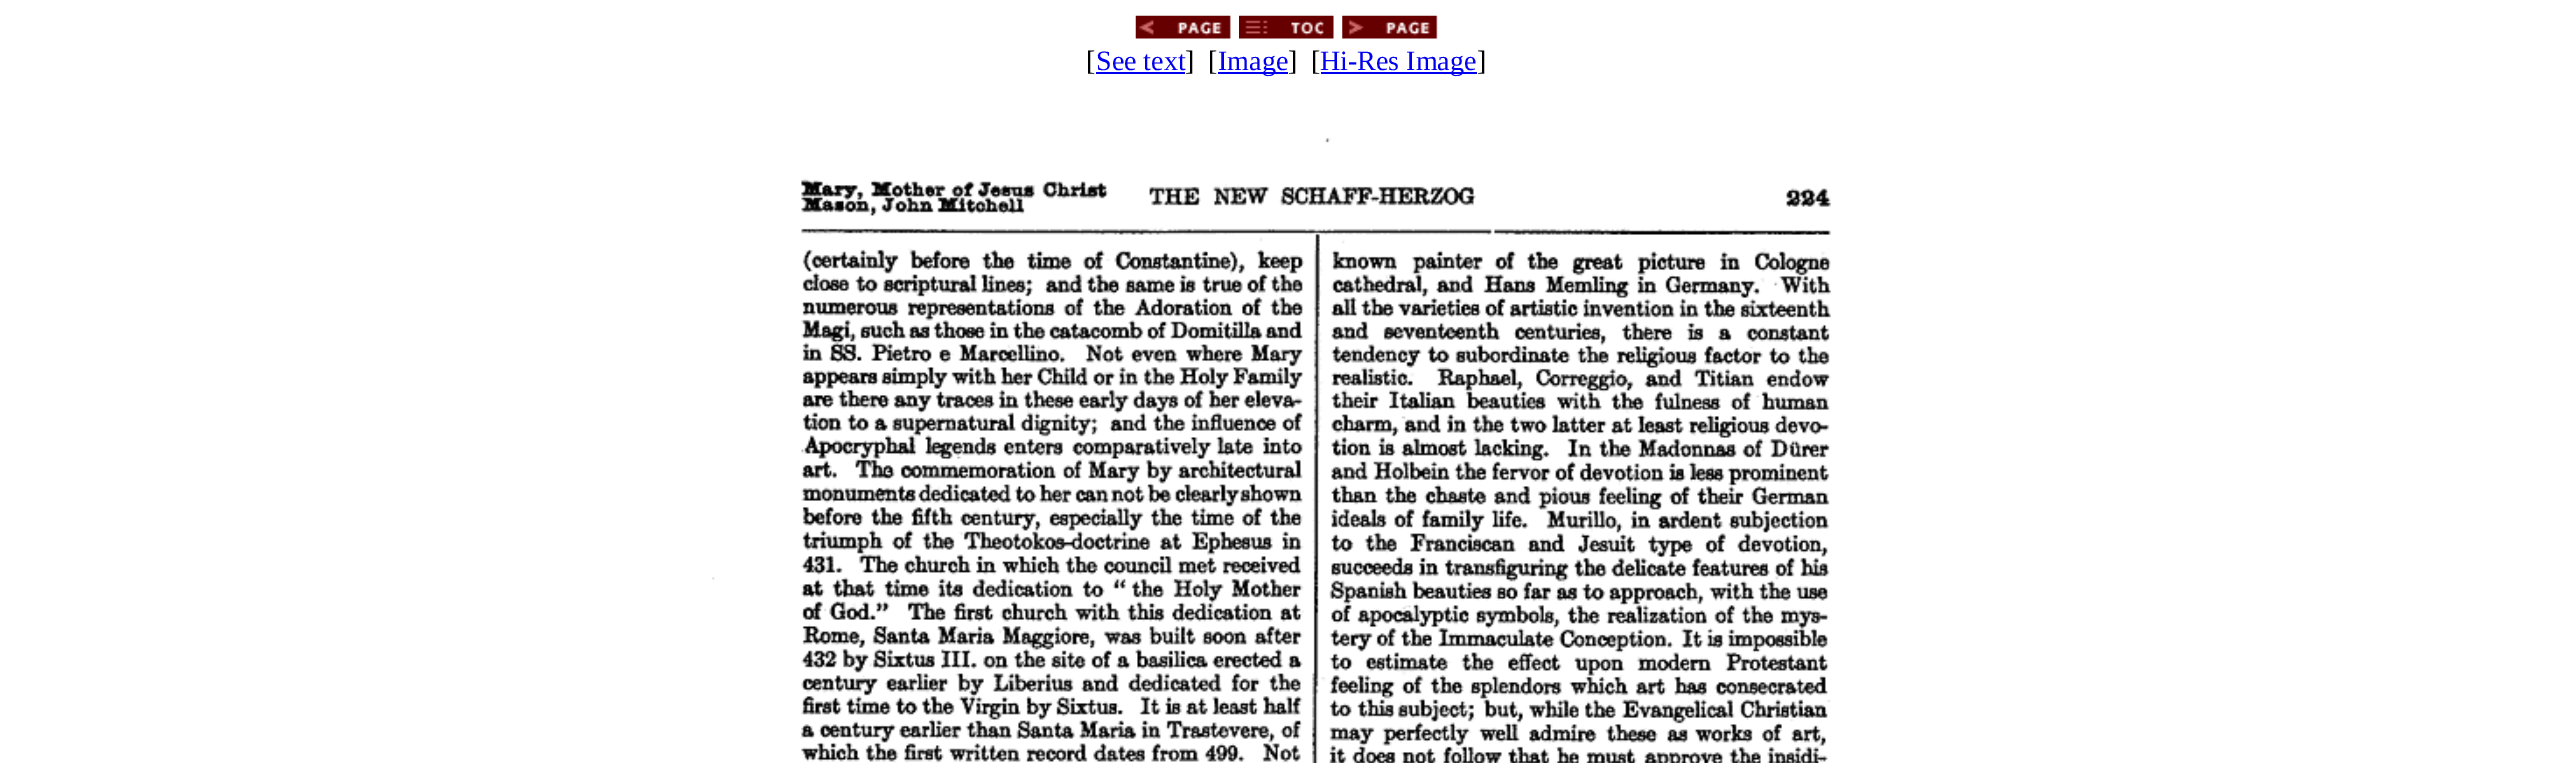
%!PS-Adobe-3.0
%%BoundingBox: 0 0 2571 763
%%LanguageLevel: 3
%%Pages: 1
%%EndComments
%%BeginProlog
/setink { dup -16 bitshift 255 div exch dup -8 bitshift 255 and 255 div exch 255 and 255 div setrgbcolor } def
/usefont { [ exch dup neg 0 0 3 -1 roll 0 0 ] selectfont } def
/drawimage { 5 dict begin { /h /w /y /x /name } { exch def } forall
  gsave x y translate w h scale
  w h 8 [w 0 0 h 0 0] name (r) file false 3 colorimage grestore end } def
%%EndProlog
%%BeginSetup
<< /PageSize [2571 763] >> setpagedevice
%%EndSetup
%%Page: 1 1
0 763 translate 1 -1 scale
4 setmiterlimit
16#FFFFFF setink
0 0 2571 763 rectfill
(img1.raw) 1135 15 96 24 drawimage
(img2.raw) 1239 15 95 24 drawimage
(img3.raw) 1342 15 96 24 drawimage
/LiberationSerif-Regular 28 usefont
16#000000 setink
1086 70 moveto ([) show
16#0000EE setink
1096 70 moveto (See text) show
1096 72 89 2 rectfill
16#000000 setink
1185 70 moveto (]) show
1208 70 moveto ([) show
16#0000EE setink
1218 72 70 2 rectfill
1218 70 moveto (Image) show
16#000000 setink
1288 70 moveto (]) show
1311 70 moveto ([) show
16#0000EE setink
1321 72 156 2 rectfill
1320 70 moveto (Hi-Res Image) show
16#000000 setink
1477 70 moveto (]) show
(img4.raw) 712 137 1119 626 drawimage
showpage
%%EOF
